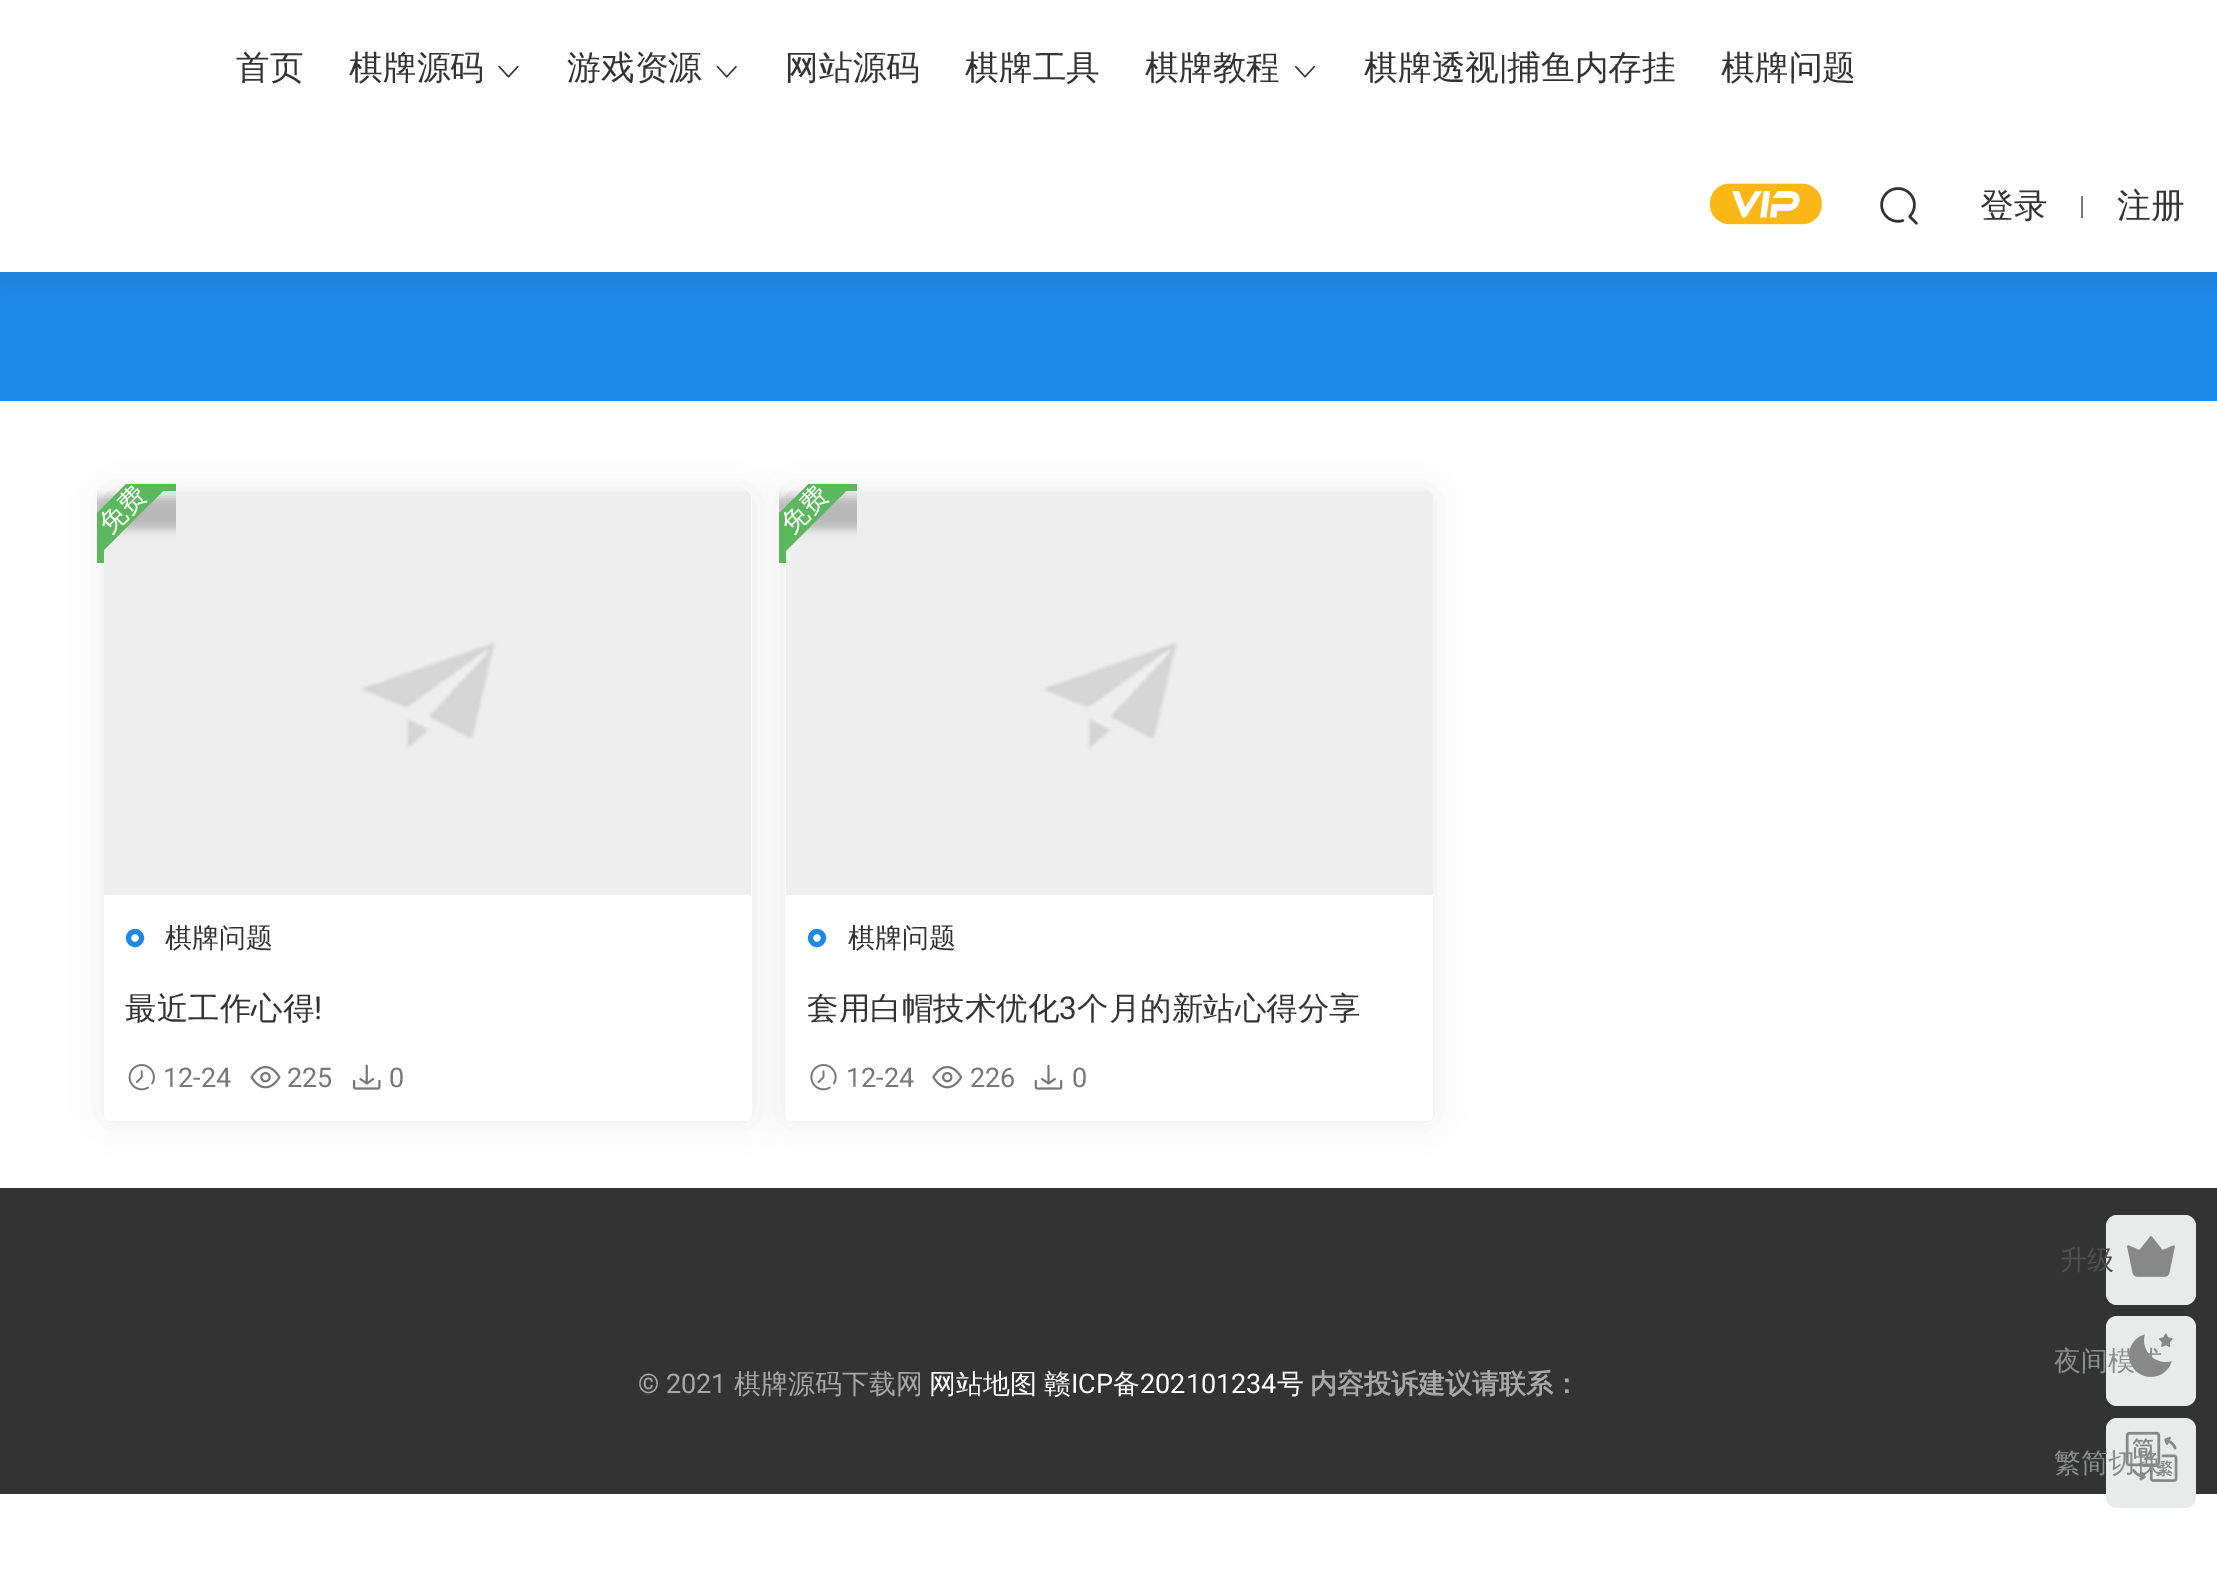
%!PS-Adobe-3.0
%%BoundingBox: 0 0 2217 1585
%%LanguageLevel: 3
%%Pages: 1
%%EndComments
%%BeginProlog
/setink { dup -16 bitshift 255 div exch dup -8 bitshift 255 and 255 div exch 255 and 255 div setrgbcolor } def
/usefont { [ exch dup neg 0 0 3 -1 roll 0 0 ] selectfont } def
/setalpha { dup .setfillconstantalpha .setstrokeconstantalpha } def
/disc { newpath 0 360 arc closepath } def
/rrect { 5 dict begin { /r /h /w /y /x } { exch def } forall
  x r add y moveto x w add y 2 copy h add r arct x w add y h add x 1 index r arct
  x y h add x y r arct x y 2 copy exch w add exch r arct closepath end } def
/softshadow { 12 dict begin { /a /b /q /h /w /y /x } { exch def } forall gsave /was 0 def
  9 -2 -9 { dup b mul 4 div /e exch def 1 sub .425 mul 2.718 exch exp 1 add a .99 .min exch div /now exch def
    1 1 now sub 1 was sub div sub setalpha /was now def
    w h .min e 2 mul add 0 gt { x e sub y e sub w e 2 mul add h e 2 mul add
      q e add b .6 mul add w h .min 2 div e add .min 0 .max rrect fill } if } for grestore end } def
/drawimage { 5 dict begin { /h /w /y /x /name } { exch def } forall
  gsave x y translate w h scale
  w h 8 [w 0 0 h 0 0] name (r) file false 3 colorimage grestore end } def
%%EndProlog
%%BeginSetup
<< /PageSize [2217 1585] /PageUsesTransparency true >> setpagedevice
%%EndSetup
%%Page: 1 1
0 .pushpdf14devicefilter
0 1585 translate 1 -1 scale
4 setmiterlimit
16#FFFFFF setink
0 0 2217 1585 rectfill
16#1E88E5 setink
0 272 2217 129 rectfill
16#113A5D setink
0 9 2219 272 0 11 0.1 softshadow
16#FFFFFF setink
0 0 2217 272 rectfill
/WenQuanYiZenHei-Medium 33.75 usefont
16#333333 setink
236 79 moveto (首页) show
349 79 moveto (棋牌源码) show
(img1.raw) 498 65 21 13 drawimage
567 79 moveto (游戏资源) show
(img2.raw) 716 65 21 13 drawimage
[
    [(网站源码) 785 79]
    [(棋牌工具) 965 79]
    [(棋牌教程) 1145 79]
] { aload pop moveto show } forall
(img3.raw) 1294 65 22 13 drawimage
1364 79 moveto (棋牌透视) show
/Roboto-Regular 33.75 usefont
1499 79 moveto (|) show
/WenQuanYiZenHei-Medium 33.75 usefont
1507 79 moveto (捕鱼内存挂) show
1721 79 moveto (棋牌问题) show
(img4.raw) 1710 183 112 42 drawimage
(img5.raw) 1880 187 38 38 drawimage
1980 217 moveto (登录) show
16#777777 setink
2081 196 2 22 rectfill
16#333333 setink
2117 217 moveto (注册) show
16#000000 setink
104 491 648 630 7 17 0.07 softshadow
16#FFFFFF setink
104 491 648 630 7 rrect fill
16#5CB85C setink
163 484 13 7 rectfill
(img9.raw) 104 491 647 404 drawimage
gsave
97 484 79 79 rectclip
16#000000 setink
52 497 135 32 0 4.5 0.22 softshadow
grestore
97 550 7 13 rectfill
gsave
97 484 79 79 rectclip
64 546 moveto 159 451 lineto 181 473 lineto 86 568 lineto closepath fill
grestore
/WenQuanYiZenHei-Medium 27 usefont
16#FFFFFF setink
gsave 110 535 translate -45 rotate 0 0 moveto (免费) show grestore
(img6.raw) 128 1064 27 27 drawimage
/Roboto-Regular 27 usefont
16#777777 setink
163 1087 moveto (12-24) show
(img7.raw) 250 1066 31 23 drawimage
287 1087 moveto (225) show
(img8.raw) 352 1064 29 26 drawimage
389 1087 moveto (0) show
16#1E88E5 setink
5 setlinewidth
135 938 6.5 disc stroke
/WenQuanYiZenHei-Medium 27 usefont
16#333333 setink
165 947 moveto (棋牌问题) show
/WenQuanYiZenHei-Medium 31.5 usefont
125 1019 moveto (最近工作心得) show
/Roboto-Regular 31.5 usefont
314 1019 moveto (!) show
16#000000 setink
785 491 648 630 7 17 0.07 softshadow
16#FFFFFF setink
785 491 648 630 7 rrect fill
16#5CB85C setink
846 484 11 7 rectfill
(img13.raw) 785 491 648 404 drawimage
gsave
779 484 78 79 rectclip
16#000000 setink
736 497 135 32 0 4.5 0.22 softshadow
grestore
779 551 7 12 rectfill
gsave
779 484 78 79 rectclip
746 546 moveto 842 451 lineto 864 473 lineto 769 568 lineto closepath fill
grestore
/WenQuanYiZenHei-Medium 27 usefont
16#FFFFFF setink
gsave 792 535 translate -45 rotate 0 0 moveto (免费) show grestore
(img10.raw) 810 1064 27 27 drawimage
/Roboto-Regular 27 usefont
16#777777 setink
846 1087 moveto (12-24) show
(img11.raw) 932 1066 31 23 drawimage
970 1087 moveto (226) show
(img12.raw) 1034 1064 29 26 drawimage
1072 1087 moveto (0) show
16#1E88E5 setink
817 938 6.5 disc stroke
/WenQuanYiZenHei-Medium 27 usefont
16#333333 setink
848 947 moveto (棋牌问题) show
/WenQuanYiZenHei-Medium 31.5 usefont
807 1019 moveto (套用白帽技术优化) show
/Roboto-Regular 31.5 usefont
1059 1019 moveto (3) show
/WenQuanYiZenHei-Medium 31.5 usefont
1077 1019 moveto (个月的新站心得分享) show
0 1188 2217 306 rectfill
/Roboto-Regular 27 usefont
16#A7A7A7 setink
638 1393 moveto (© 2021) show
/WenQuanYiZenHei-Medium 27 usefont
734 1393 moveto (棋牌源码下载网) show
16#FFFFFF setink
929 1393 moveto (网站地图) show
1044 1393 moveto (赣) show
/Roboto-Regular 27 usefont
1071 1393 moveto (ICP) show
/WenQuanYiZenHei-Medium 27 usefont
1113 1393 moveto (备) show
/Roboto-Regular 27 usefont
1140 1393 moveto (202101234) show
/WenQuanYiZenHei-Medium 27 usefont
1277 1393 moveto (号) show
/WenQuanYiZenHei-Bold 27 usefont
16#A7A7A7 setink
1310 1393 moveto (内容投诉建议请联系：) show
16#E9EAEA setink
2106 1215 90 90 11 rrect fill
/WenQuanYiZenHei-Medium 27 usefont
16#4F4F4F setink
2060 1269 moveto (升级) show
(img14.raw) 2127 1236 48 41 drawimage
16#E9EAEA setink
2106 1316 90 90 11 rrect fill
16#8C8D8D setink
2054 1370 moveto (夜间模) show
(img15.raw) 2129 1333 44 44 drawimage
16#E9EAEA setink
2106 1418 90 90 11 rrect fill
16#8C8D8D setink
2054 1472 moveto (繁简切换) show
(img16.raw) 2125 1431 53 51 drawimage
.poppdf14devicefilter showpage
%%EOF
